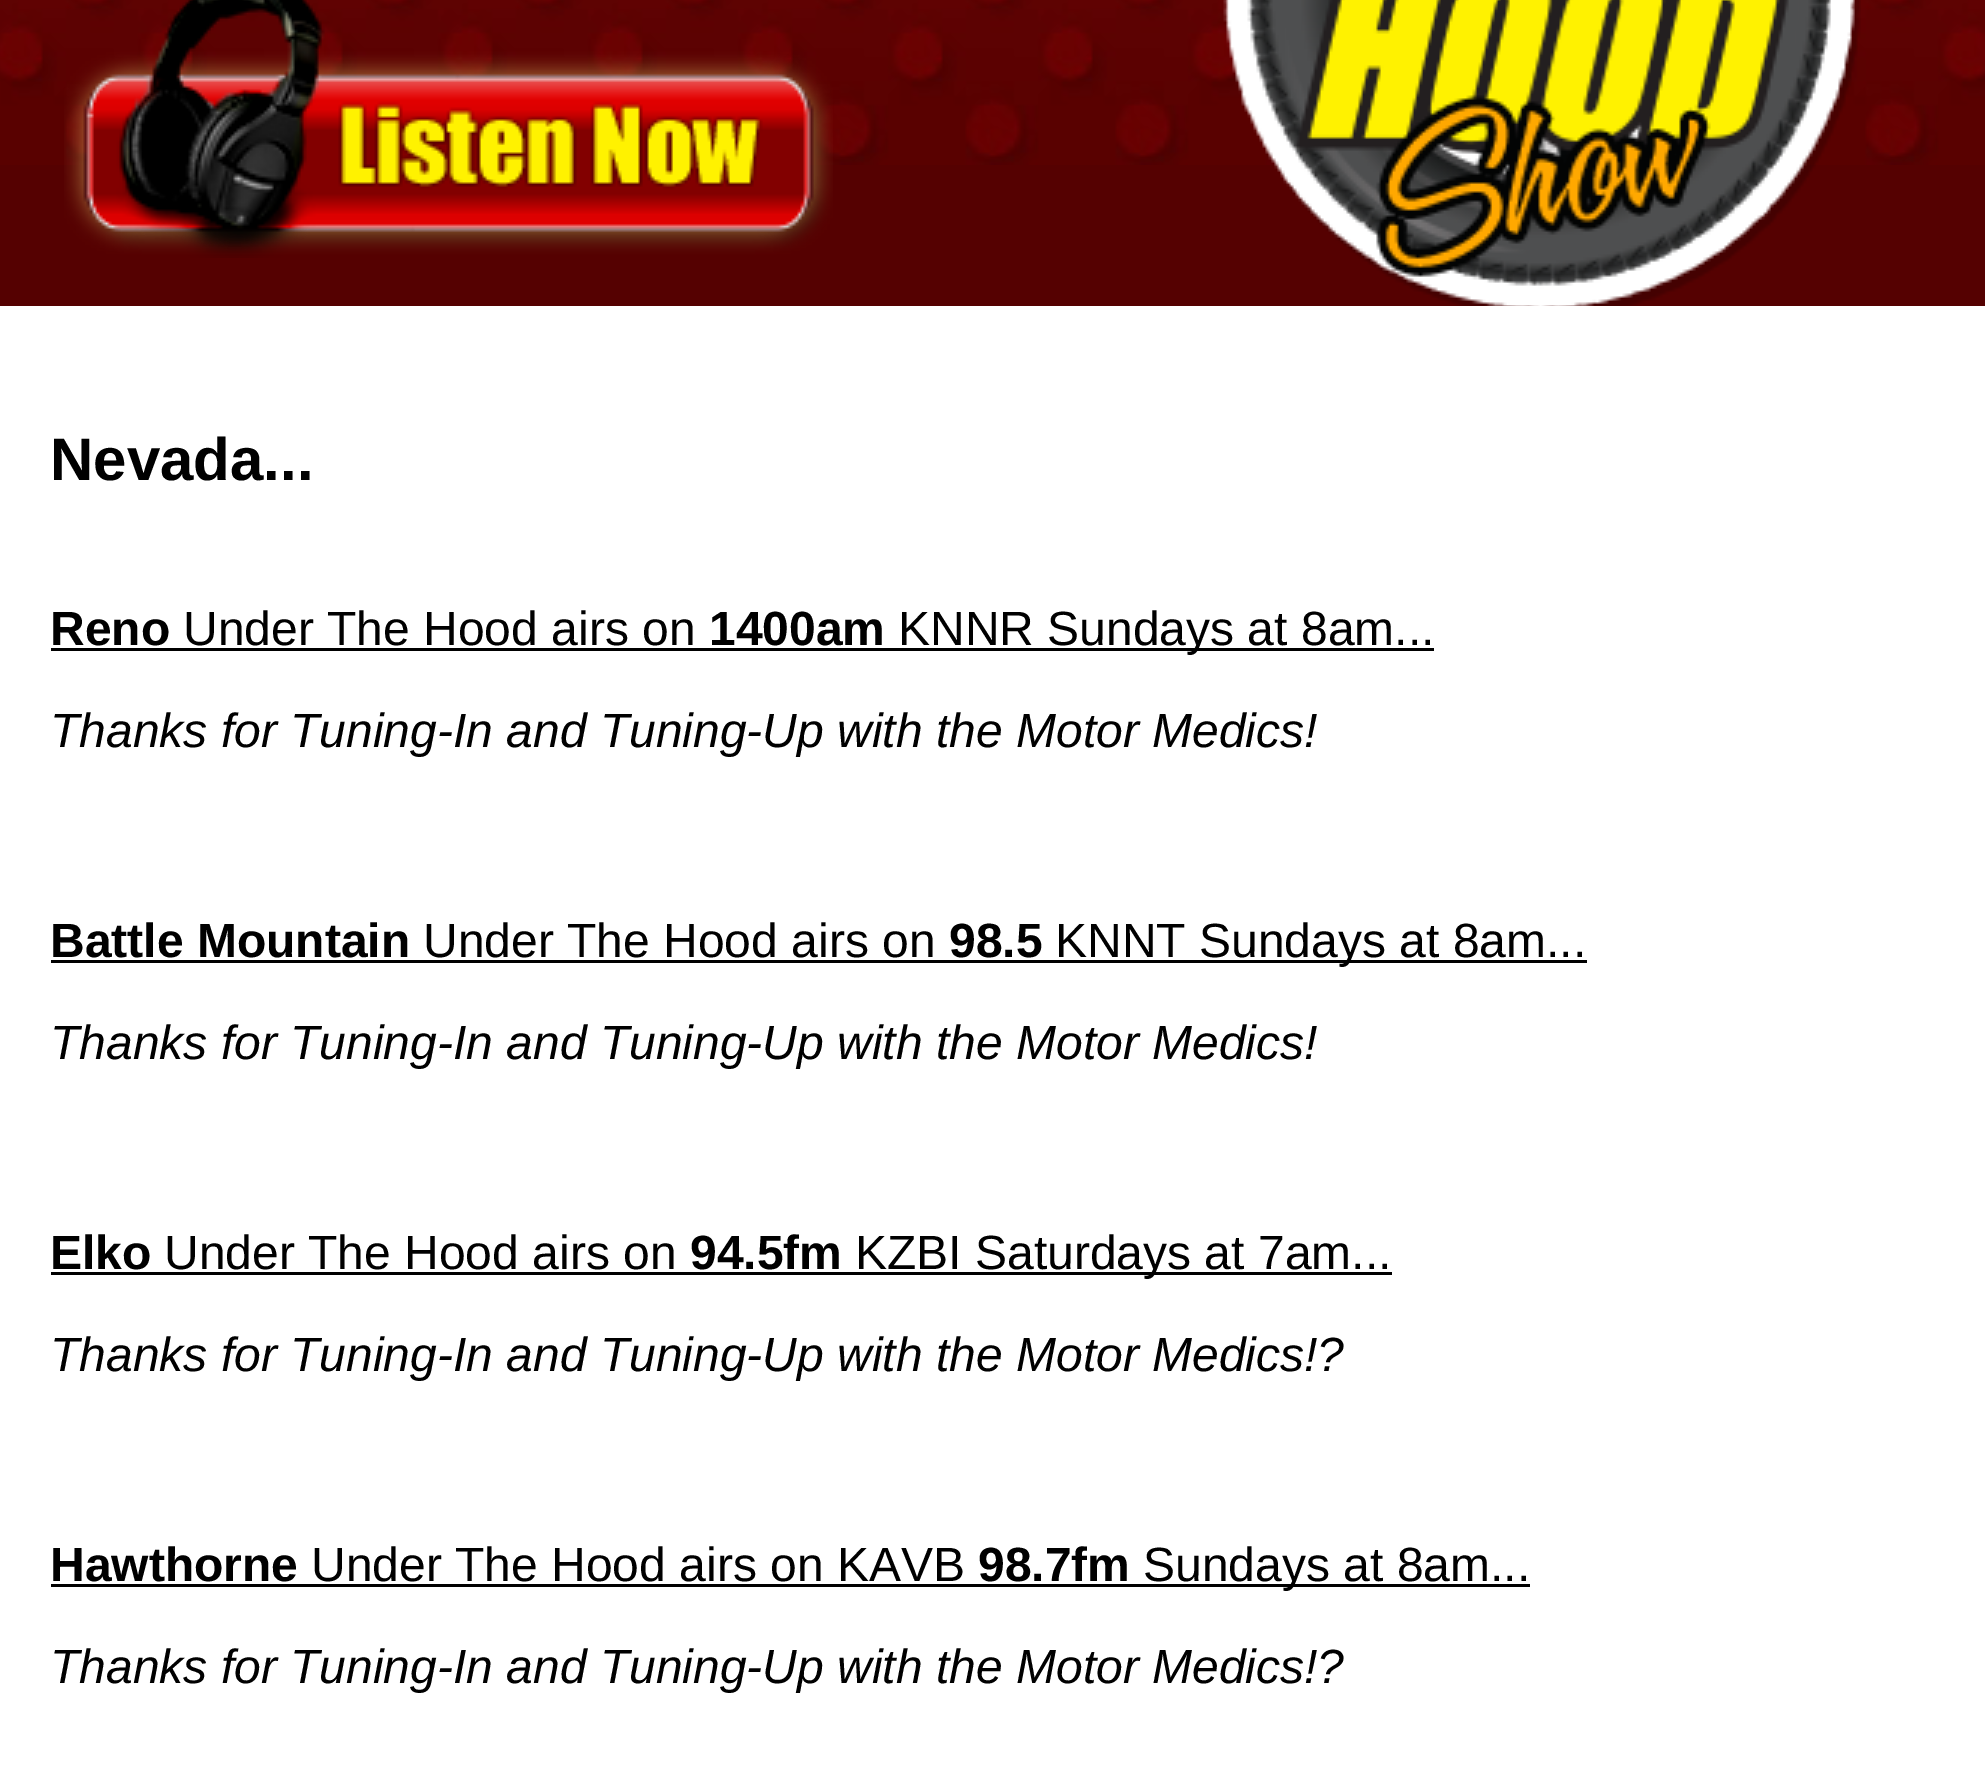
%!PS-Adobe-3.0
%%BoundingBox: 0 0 1985 1776
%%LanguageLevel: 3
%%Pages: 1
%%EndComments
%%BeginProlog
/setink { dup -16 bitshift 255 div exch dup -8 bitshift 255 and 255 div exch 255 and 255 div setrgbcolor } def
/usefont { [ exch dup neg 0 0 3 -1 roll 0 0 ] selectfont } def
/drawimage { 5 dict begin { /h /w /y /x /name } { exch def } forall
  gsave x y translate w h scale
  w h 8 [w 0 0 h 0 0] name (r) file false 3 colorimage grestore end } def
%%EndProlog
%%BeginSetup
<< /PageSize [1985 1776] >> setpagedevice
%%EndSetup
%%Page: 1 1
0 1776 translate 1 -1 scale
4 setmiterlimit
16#550101 setink
0 0 1985 1776 rectfill
(img1.raw) 0 0 1985 165 drawimage
(img2.raw) 64 0 769 258 drawimage
(img3.raw) 1223 0 638 306 drawimage
16#FFFFFF setink
0 306 1985 1470 rectfill
/LiberationSans-Bold 60 usefont
16#000000 setink
50 480 moveto (Nevada...) show
/LiberationSans-Bold 48 usefont
50 645 moveto (Reno) show
/LiberationSans-Regular 48 usefont
183 645 moveto (Under The Hood airs on) show
/LiberationSans-Bold 48 usefont
709 645 moveto (1400am) show
51 648 1383 3 rectfill
/LiberationSans-Regular 48 usefont
898 645 moveto (KNNR Sundays at 8am...) show
/LiberationSans-Italic 48 usefont
50 747 moveto (Thanks for Tuning-In and Tuning-Up with the Motor Medics!) show
/LiberationSans-Bold 48 usefont
50 957 moveto (Battle Mountain) show
/LiberationSans-Regular 48 usefont
423 957 moveto (Under The Hood airs on) show
/LiberationSans-Bold 48 usefont
949 957 moveto (98.5) show
51 960 1536 3 rectfill
/LiberationSans-Regular 48 usefont
1055 957 moveto (KNNT Sundays at 8am...) show
/LiberationSans-Italic 48 usefont
50 1059 moveto (Thanks for Tuning-In and Tuning-Up with the Motor Medics!) show
/LiberationSans-Bold 48 usefont
50 1269 moveto (Elko) show
/LiberationSans-Regular 48 usefont
164 1269 moveto (Under The Hood airs on) show
/LiberationSans-Bold 48 usefont
690 1269 moveto (94.5fm) show
51 1272 1341 3 rectfill
/LiberationSans-Regular 48 usefont
855 1269 moveto (KZBI Saturdays at 7am...) show
/LiberationSans-Italic 48 usefont
50 1371 moveto (Thanks for Tuning-In and Tuning-Up with the Motor Medics!?) show
/LiberationSans-Bold 48 usefont
50 1581 moveto (Hawthorne) show
/LiberationSans-Regular 48 usefont
311 1581 moveto (Under The Hood airs on KAVB) show
/LiberationSans-Bold 48 usefont
978 1581 moveto (98.7fm) show
51 1584 1479 3 rectfill
/LiberationSans-Regular 48 usefont
1143 1581 moveto (Sundays at 8am...) show
/LiberationSans-Italic 48 usefont
50 1683 moveto (Thanks for Tuning-In and Tuning-Up with the Motor Medics!?) show
showpage
%%EOF
